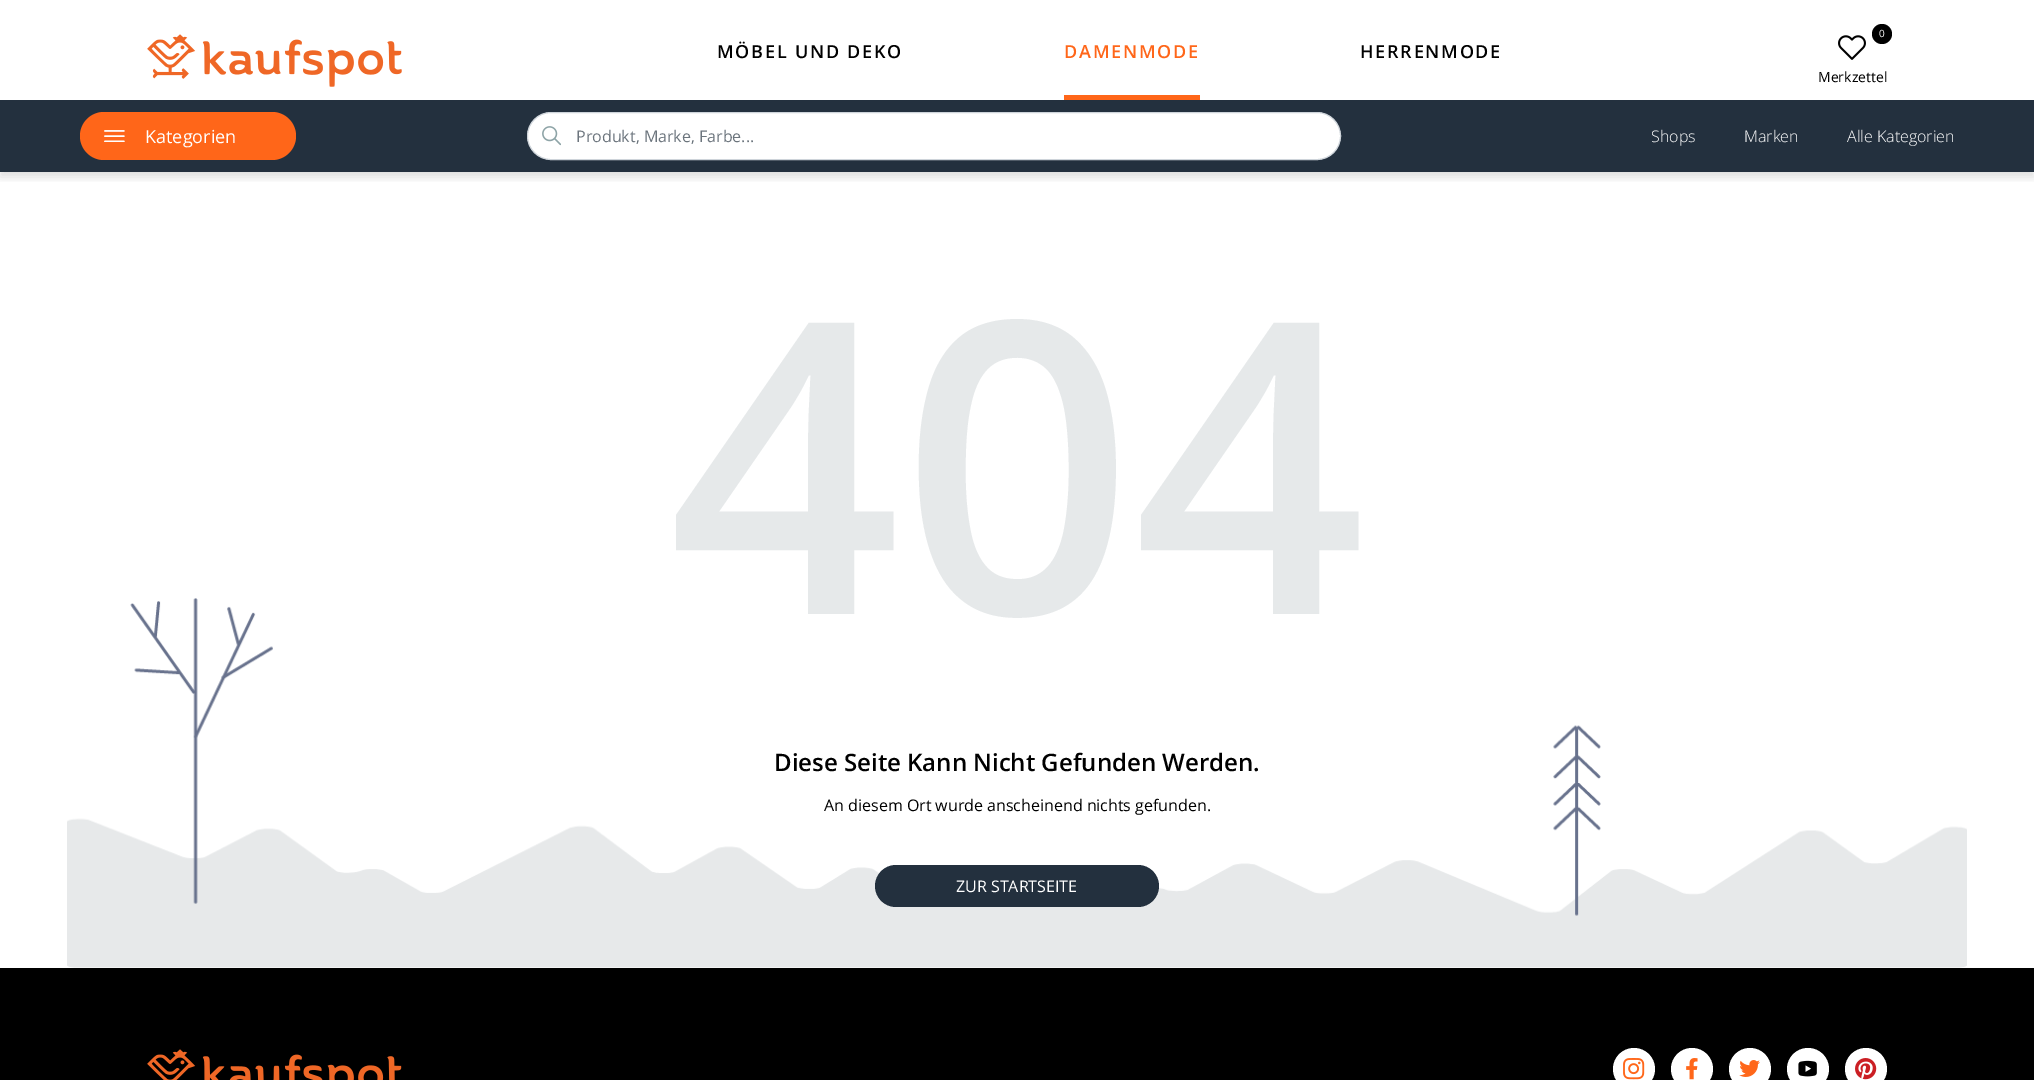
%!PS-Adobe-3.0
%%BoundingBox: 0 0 2034 1080
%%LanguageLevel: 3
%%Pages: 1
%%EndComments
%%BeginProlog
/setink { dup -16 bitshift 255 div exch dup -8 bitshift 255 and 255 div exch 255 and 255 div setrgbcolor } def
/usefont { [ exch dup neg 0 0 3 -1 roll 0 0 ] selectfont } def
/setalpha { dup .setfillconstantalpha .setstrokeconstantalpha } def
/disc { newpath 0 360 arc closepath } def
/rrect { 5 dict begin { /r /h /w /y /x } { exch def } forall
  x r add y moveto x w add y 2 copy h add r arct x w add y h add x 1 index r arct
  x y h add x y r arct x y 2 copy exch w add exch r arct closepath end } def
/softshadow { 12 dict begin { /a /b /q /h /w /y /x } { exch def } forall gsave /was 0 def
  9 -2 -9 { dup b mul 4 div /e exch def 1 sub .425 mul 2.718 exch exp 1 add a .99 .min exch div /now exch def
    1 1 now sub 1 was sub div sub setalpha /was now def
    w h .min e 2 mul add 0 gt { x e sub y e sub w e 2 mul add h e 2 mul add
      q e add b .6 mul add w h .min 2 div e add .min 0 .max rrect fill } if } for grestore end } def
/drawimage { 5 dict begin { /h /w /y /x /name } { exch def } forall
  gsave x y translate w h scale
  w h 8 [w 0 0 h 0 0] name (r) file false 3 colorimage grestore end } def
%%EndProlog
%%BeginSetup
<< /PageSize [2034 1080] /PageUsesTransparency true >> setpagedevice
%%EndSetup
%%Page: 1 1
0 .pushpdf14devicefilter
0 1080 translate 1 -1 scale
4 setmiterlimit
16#FFFFFF setink
0 0 2034 1080 rectfill
gsave
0 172 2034 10 rectclip
16#000000 setink
0 5 2034 172 0 5 0.13 softshadow
grestore
(img1.raw) 147 34 255 53 drawimage
/OpenSans-SemiBold 18 usefont
16#000000 setink
717 58 moveto 1.75 0 (MÖBEL UND DEKO) ashow
16#FF6619 setink
1064 95 136 5 rectfill
1064 58 moveto 1.75 0 (DAMENMODE) ashow
16#000000 setink
1360 58 moveto 1.75 0 (HERRENMODE) ashow
1882 34 10 disc fill
/OpenSans-Regular 10 usefont
16#FFFFFF setink
1879 37 moveto (0) show
(img2.raw) 1838 35 28 25 drawimage
/OpenSans-Regular 14 usefont
16#000000 setink
1818 82 moveto (Merkzettel) show
16#23303E setink
0 100 2034 72 rectfill
16#FF6619 setink
80 112 216 48 24 rrect fill
(img3.raw) 104 130 21 12 drawimage
/OpenSans-Regular 18 usefont
16#FFFFFF setink
145 143 moveto (Kategorien) show
527.5 112.5 813 47 23.5 rrect gsave fill grestore
16#CED4DA setink
stroke
(img4.raw) 542 126 19 20 drawimage
/OpenSans-Regular 16 usefont
16#6C757D setink
576 142 moveto (Produkt, Marke, Farbe...) show
/OpenSans-Light 16 usefont
16#FFFFFF setink
[
    [(Shops) 1651 142]
    [(Marken) 1744 142]
    [(Alle Kategorien) 1847 142]
] { aload pop moveto show } forall
(img5.raw) 67 598 1900 370 drawimage
/OpenSans-SemiBold 407 usefont
16#E6E9EA setink
668 614 moveto (404) show
/OpenSans-SemiBold 24 usefont
16#000000 setink
774 771 moveto (Diese Seite Kann Nicht Gefunden Werden.) show
/OpenSans-Regular 16 usefont
824 811 moveto (An diesem Ort wurde anscheinend nichts gefunden.) show
16#23303E setink
875 865 284 42 21 rrect fill
16#FFFFFF setink
956 892 moveto (ZUR STARTSEITE) show
16#000000 setink
0 968 2034 112 rectfill
(img6.raw) 147 1049 255 31 drawimage
16#FFFFFF setink
1634 1069 21 disc fill
(img7.raw) 1623 1058 22 22 drawimage
1692 1069 21 disc fill
(img8.raw) 1686 1058 12 22 drawimage
1750 1069 21 disc fill
(img9.raw) 1739 1060 21 17 drawimage
1808 1069 21 disc fill
(img10.raw) 1798 1060 19 17 drawimage
1866 1069 21 disc fill
(img11.raw) 1855 1058 22 22 drawimage
.poppdf14devicefilter showpage
%%EOF
